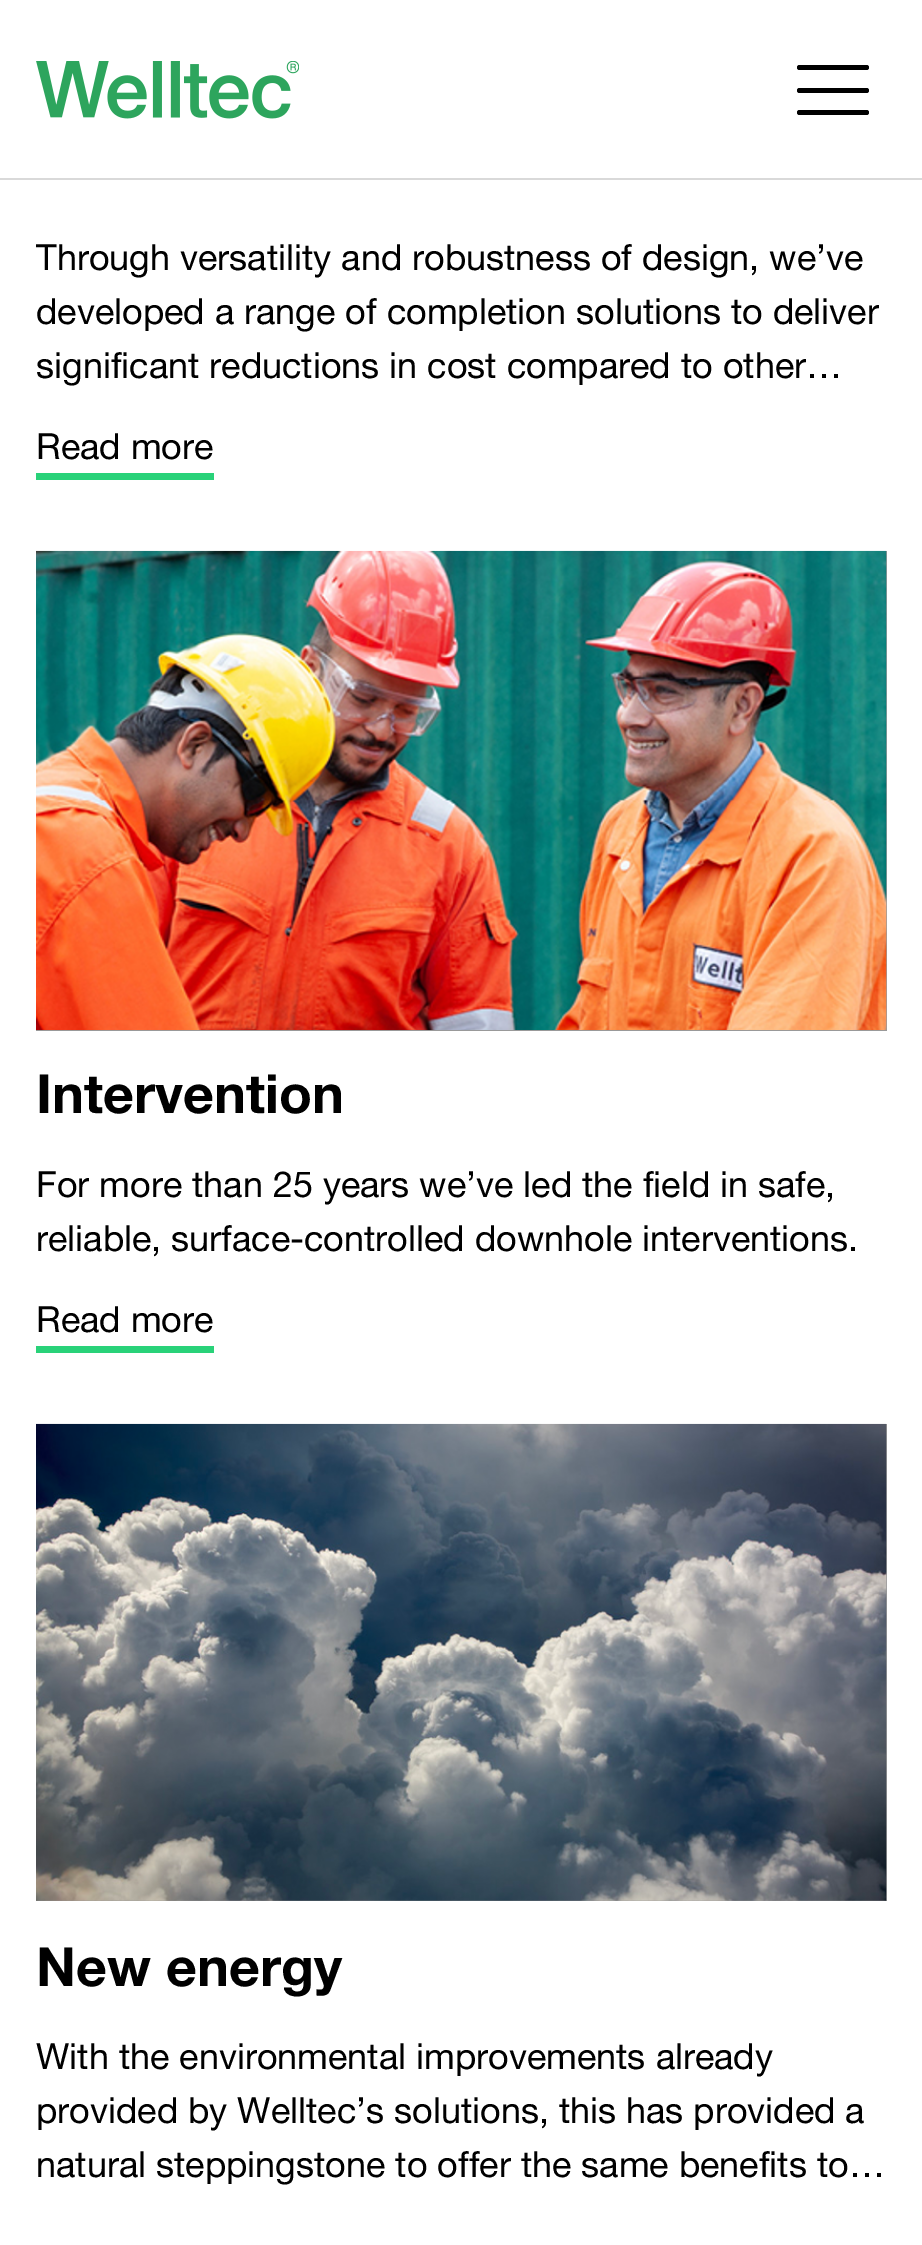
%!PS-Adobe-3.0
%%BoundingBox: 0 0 922 2245
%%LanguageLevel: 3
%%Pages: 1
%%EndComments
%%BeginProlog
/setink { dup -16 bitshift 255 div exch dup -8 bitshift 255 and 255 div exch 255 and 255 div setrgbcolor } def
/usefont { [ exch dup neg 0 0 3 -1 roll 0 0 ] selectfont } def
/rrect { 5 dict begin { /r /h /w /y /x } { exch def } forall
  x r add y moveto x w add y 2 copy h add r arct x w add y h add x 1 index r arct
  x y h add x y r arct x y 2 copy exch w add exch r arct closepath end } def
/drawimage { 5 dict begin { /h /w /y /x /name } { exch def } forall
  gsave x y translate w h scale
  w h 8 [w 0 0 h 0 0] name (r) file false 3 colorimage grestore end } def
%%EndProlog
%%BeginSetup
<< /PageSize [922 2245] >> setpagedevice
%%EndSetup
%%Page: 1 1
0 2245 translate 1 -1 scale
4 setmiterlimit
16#FFFFFF setink
0 0 922 2245 rectfill
16#D9D9D9 setink
0 178 922 2 rectfill
(img1.raw) 36 61 263 58 drawimage
16#000000 setink
797 65 72 5 2.5 rrect fill
797 88 72 5 2.5 rrect fill
797 110 72 5 2.5 rrect fill
/HelveticaNeue-Regular 36 usefont
[
    [(Through versatility and robustness of design, we’ve) 36 270]
    [(developed a range of completion solutions to deliver) 36 324]
    [(significant reductions in cost compared to other…) 36 378]
] { aload pop moveto show } forall
16#29D279 setink
36 473 178 7 rectfill
16#000000 setink
36 459 moveto (Read more) show
16#999999 setink
36 551 851 480 rectfill
(img2.raw) 36 550 851 480 drawimage
/HelveticaNeue-Bold 54 usefont
16#000000 setink
36 1113 moveto (Intervention) show
/HelveticaNeue-Regular 36 usefont
36 1197 moveto (For more than 25 years we’ve led the field in safe,) show
36 1251 moveto (reliable, surface-controlled downhole interventions.) show
16#29D279 setink
36 1346 178 7 rectfill
16#000000 setink
36 1332 moveto (Read more) show
16#999999 setink
36 1424 851 477 rectfill
(img3.raw) 36 1423 851 478 drawimage
/HelveticaNeue-Bold 54 usefont
16#000000 setink
36 1986 moveto (New energy) show
/HelveticaNeue-Regular 36 usefont
[
    [(With the environmental improvements already) 36 2069]
    [(provided by Welltec’s solutions, this has provided a) 36 2123]
    [(natural steppingstone to offer the same benefits to…) 36 2177]
] { aload pop moveto show } forall
showpage
%%EOF
